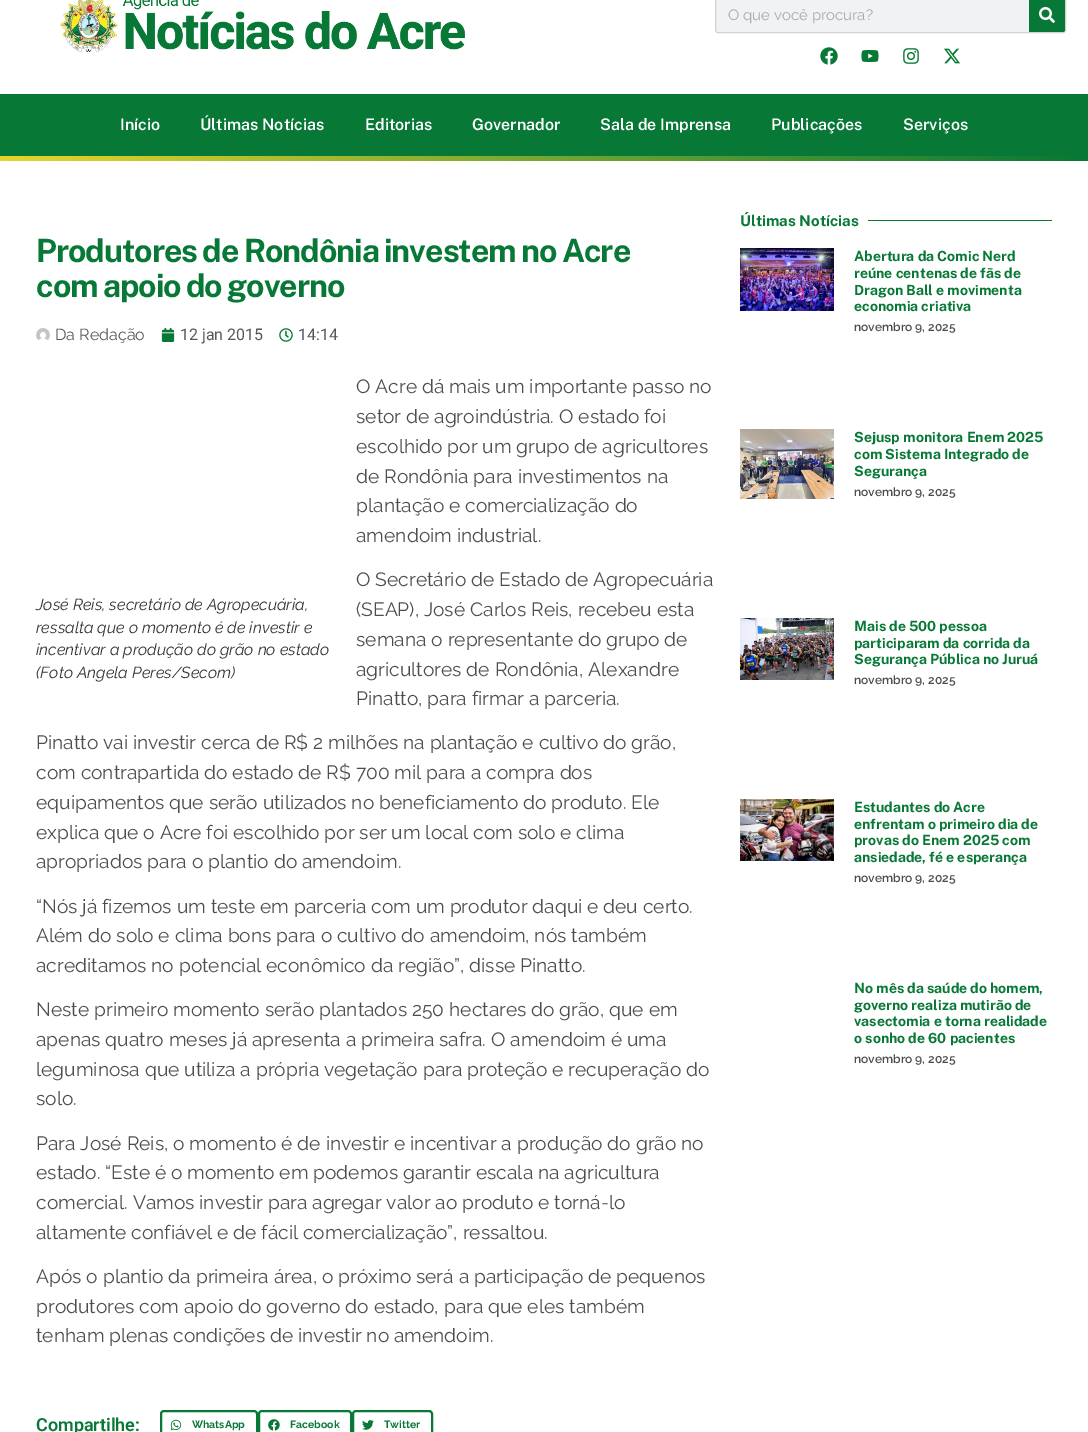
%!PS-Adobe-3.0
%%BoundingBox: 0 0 1088 1432
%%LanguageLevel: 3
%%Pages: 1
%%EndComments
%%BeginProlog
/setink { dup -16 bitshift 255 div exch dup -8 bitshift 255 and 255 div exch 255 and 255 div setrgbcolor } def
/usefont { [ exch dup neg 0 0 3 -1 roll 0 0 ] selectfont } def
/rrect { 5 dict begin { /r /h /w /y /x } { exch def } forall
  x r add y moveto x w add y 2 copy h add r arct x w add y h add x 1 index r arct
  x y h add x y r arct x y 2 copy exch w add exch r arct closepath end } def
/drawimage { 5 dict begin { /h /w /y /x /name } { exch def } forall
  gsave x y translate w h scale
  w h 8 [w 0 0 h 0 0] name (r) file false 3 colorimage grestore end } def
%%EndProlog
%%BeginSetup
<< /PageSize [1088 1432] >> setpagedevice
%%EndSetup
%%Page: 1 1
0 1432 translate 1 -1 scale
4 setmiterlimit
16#FFFFFF setink
0 0 1088 1432 rectfill
(img1.raw) 60 0 405 52 drawimage
16#F1F2F3 setink
715.5 -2.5 350 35 2.5 rrect gsave fill grestore
16#D1D1D1 setink
stroke
/Raleway-Regular 15 usefont
16#AAAAAA setink
728 20 moveto (O que você procura?) show
16#077835 setink
1029 -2 moveto 1063 -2 lineto 1064 -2 1065 -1 1065 0 curveto 1065 30 lineto 1065 31 1064 32 1063 32 curveto 1029 32 lineto closepath fill
(img2.raw) 1039 7 16 16 drawimage
(img3.raw) 820 47 18 18 drawimage
(img4.raw) 861 50 18 12 drawimage
(img5.raw) 903 48 16 16 drawimage
(img6.raw) 944 48 16 16 drawimage
0 94 1088 62 rectfill
/PublicSans-SemiBold 16 usefont
16#FFFFFF setink
[
    [(Início) 120 130]
    [(Últimas Notícias) 200 130]
    [(Editorias) 365 130]
    [(Governador) 472 130]
    [(Sala de Imprensa) 600 130]
    [(Publicações) 771 130]
    [(Serviços) 903 130]
] { aload pop moveto show } forall
gsave 0 156 moveto 1088 156 lineto 1088 161 lineto 0 161 lineto closepath clip newpath
<< /ShadingType 2 /ColorSpace /DeviceRGB /Coords [1088 159 0 158] /Extend [true true] /Function << /FunctionType 2 /Domain [0 1] /C0 [0.027 0.471 0.208] /C1 [0.898 0.835 0.173] /N 1 >> >> shfill grestore
/PublicSans-Bold 32 usefont
16#077835 setink
36 262 moveto -1 0 32 -1 0 (Produtores de Rondônia investem no Acre) awidthshow
36 297 moveto -1 0 32 -1 0 (com apoio do governo) awidthshow
(img7.raw) 36 328 14 13 drawimage
/Raleway-Regular 16 usefont
16#54595F setink
55 340 moveto (Da Redação) show
(img8.raw) 161 328 14 14 drawimage
/Roboto-Regular 16 usefont
180 340 moveto (12 jan 2015) show
(img9.raw) 279 328 14 14 drawimage
298 340 moveto (14:14) show
/Raleway-Regular 19.2 usefont
16#4D4D4D setink
[
    [(O Acre dá mais um importante passo no) 356 393]
    [(setor de agroindústria. O estado foi) 356 423]
    [(escolhido por um grupo de agricultores) 356 453]
    [(de Rondônia para investimentos na) 356 483]
    [(plantação e comercialização do) 356 512]
    [(amendoim industrial.) 356 542]
] { aload pop moveto show } forall
/Raleway-Italic 16 usefont
16#333333 setink
[
    [(José Reis, secretário de Agropecuária,) 36 610]
    [(ressalta que o momento é de investir e) 36 633]
    [(incentivar a produção do grão no estado) 36 655]
    [(\(Foto Angela Peres/Secom\)) 36 678]
] { aload pop moveto show } forall
/Raleway-Regular 19.2 usefont
16#4D4D4D setink
[
    [(O Secretário de Estado de Agropecuária) 356 586]
    [(\(SEAP\), José Carlos Reis, recebeu esta) 356 616]
    [(semana o representante do grupo de) 356 646]
    [(agricultores de Rondônia, Alexandre) 356 676]
    [(Pinatto, para firmar a parceria.) 356 705]
    [(Pinatto vai investir cerca de R$ 2 milhões na plantação e cultivo do grão,) 36 749]
    [(com contrapartida do estado de R$ 700 mil para a compra dos) 36 779]
    [(equipamentos que serão utilizados no beneficiamento do produto. Ele) 36 809]
    [(explica que o Acre foi escolhido por ser um local com solo e clima) 36 839]
    [(apropriados para o plantio do amendoim.) 36 868]
    [(“Nós já fizemos um teste em parceria com um produtor daqui e deu certo.) 36 913]
    [(Além do solo e clima bons para o cultivo do amendoim, nós também) 36 942]
    [(acreditamos no potencial econômico da região”, disse Pinatto.) 36 972]
    [(Neste primeiro momento serão plantados 250 hectares do grão, que em) 36 1016]
    [(apenas quatro meses já apresenta a primeira safra. O amendoim é uma) 36 1046]
    [(leguminosa que utiliza a própria vegetação para proteção e recuperação do) 36 1076]
    [(solo.) 36 1105]
    [(Para José Reis, o momento é de investir e incentivar a produção do grão no) 36 1150]
    [(estado. “Este é o momento em podemos garantir escala na agricultura) 36 1179]
    [(comercial. Vamos investir para agregar valor ao produto e torná-lo) 36 1209]
    [(altamente confiável e de fácil comercialização”, ressaltou.) 36 1239]
    [(Após o plantio da primeira área, o próximo será a participação de pequenos) 36 1283]
    [(produtores com apoio do governo do estado, para que eles também) 36 1313]
    [(tenham plenas condições de investir no amendoim.) 36 1342]
] { aload pop moveto show } forall
/Roboto-SemiBold 18 usefont
16#077835 setink
36 1431 moveto (Compartilhe:) show
2 setlinewidth
161 1411 96 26 3 rrect stroke
(img10.raw) 170 1419 12 12 drawimage
/Raleway-Bold 10.5 usefont
192 1428 moveto (WhatsApp) show
259 1411 92 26 3 rrect stroke
(img11.raw) 268 1419 12 12 drawimage
290 1428 moveto (Facebook) show
353 1411 79 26 3 rrect stroke
(img12.raw) 362 1420 12 10 drawimage
384 1428 moveto (Twitter) show
/PublicSans-Bold 15 usefont
740 226 moveto (Últimas Notícias) show
868 220 184 1 rectfill
(img13.raw) 740 248 94 63 drawimage
/PublicSans-Bold 14 usefont
[
    [(Abertura da Comic Nerd) 854 261]
    [(reúne centenas de fãs de) 854 278]
    [(Dragon Ball e movimenta) 854 295]
    [(economia criativa) 854 311]
] { aload pop moveto show } forall
/Raleway-SemiBold 12 usefont
16#4D4D4D setink
854 331 moveto (novembro 9, 2025) show
(img14.raw) 740 429 94 70 drawimage
/PublicSans-Bold 14 usefont
16#077835 setink
[
    [(Sejusp monitora Enem 2025) 854 442]
    [(com Sistema Integrado de) 854 459]
    [(Segurança) 854 476]
] { aload pop moveto show } forall
/Raleway-SemiBold 12 usefont
16#4D4D4D setink
854 496 moveto (novembro 9, 2025) show
(img15.raw) 740 618 94 62 drawimage
/PublicSans-Bold 14 usefont
16#077835 setink
[
    [(Mais de 500 pessoa) 854 631]
    [(participaram da corrida da) 854 648]
    [(Segurança Pública no Juruá) 854 664]
] { aload pop moveto show } forall
/Raleway-SemiBold 12 usefont
16#4D4D4D setink
854 684 moveto (novembro 9, 2025) show
(img16.raw) 740 799 94 62 drawimage
/PublicSans-Bold 14 usefont
16#077835 setink
[
    [(Estudantes do Acre) 854 812]
    [(enfrentam o primeiro dia de) 854 829]
    [(provas do Enem 2025 com) 854 845]
    [(ansiedade, fé e esperança) 854 862]
] { aload pop moveto show } forall
/Raleway-SemiBold 12 usefont
16#4D4D4D setink
854 882 moveto (novembro 9, 2025) show
/PublicSans-Bold 14 usefont
16#077835 setink
[
    [(No mês da saúde do homem,) 854 993]
    [(governo realiza mutirão de) 854 1010]
    [(vasectomia e torna realidade) 854 1026]
    [(o sonho de 60 pacientes) 854 1043]
] { aload pop moveto show } forall
/Raleway-SemiBold 12 usefont
16#4D4D4D setink
854 1063 moveto (novembro 9, 2025) show
showpage
%%EOF
